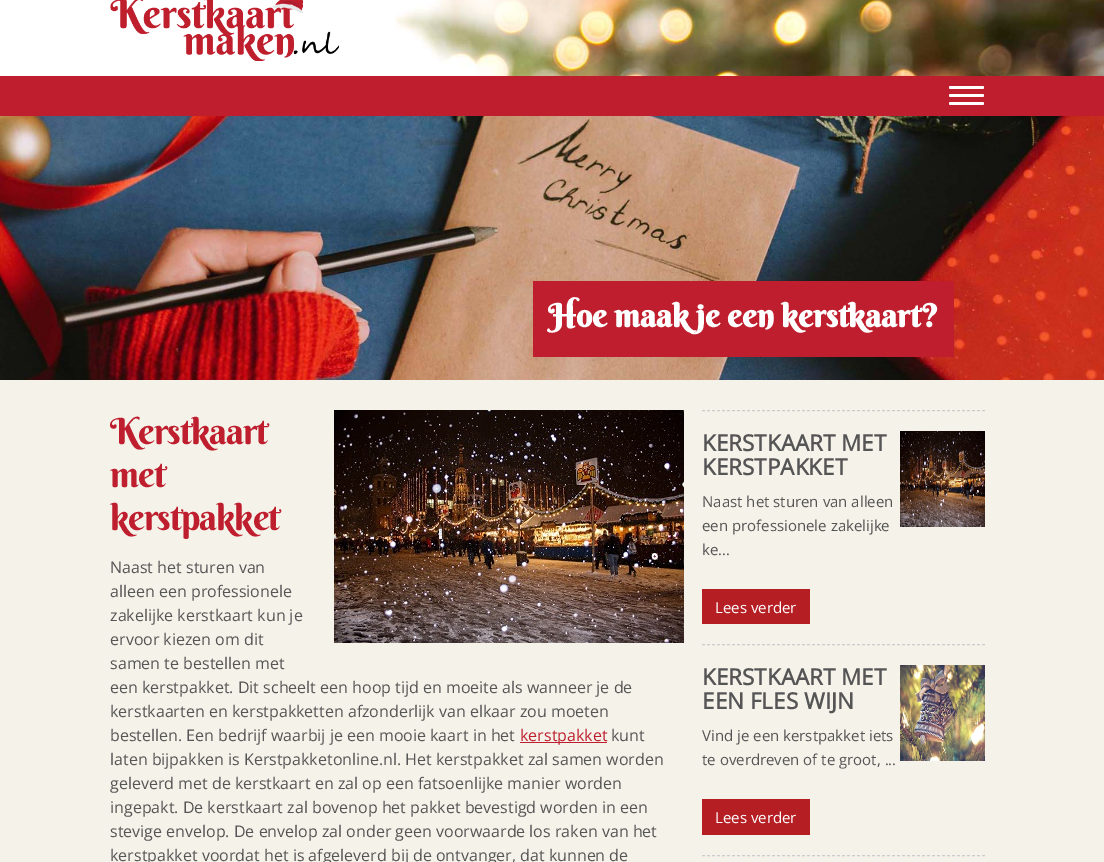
%!PS-Adobe-3.0
%%BoundingBox: 0 0 1104 862
%%LanguageLevel: 3
%%Pages: 1
%%EndComments
%%BeginProlog
/setink { dup -16 bitshift 255 div exch dup -8 bitshift 255 and 255 div exch 255 and 255 div setrgbcolor } def
/usefont { [ exch dup neg 0 0 3 -1 roll 0 0 ] selectfont } def
/rrect { 5 dict begin { /r /h /w /y /x } { exch def } forall
  x r add y moveto x w add y 2 copy h add r arct x w add y h add x 1 index r arct
  x y h add x y r arct x y 2 copy exch w add exch r arct closepath end } def
/drawimage { 5 dict begin { /h /w /y /x /name } { exch def } forall
  gsave x y translate w h scale
  w h 8 [w 0 0 h 0 0] name (r) file false 3 colorimage grestore end } def
%%EndProlog
%%BeginSetup
<< /PageSize [1104 862] >> setpagedevice
%%EndSetup
%%Page: 1 1
0 862 translate 1 -1 scale
4 setmiterlimit
16#FFFFFF setink
0 0 1104 862 rectfill
(img1.raw) 395 0 709 76 drawimage
(img2.raw) 110 0 229 61 drawimage
16#BE1E2D setink
0 76 1104 40 rectfill
16#FFFFFF setink
949 86 35 3 1.5 rrect fill
949 94 35 3 1.5 rrect fill
949 102 35 3 1.5 rrect fill
(img3.raw) 0 116 1104 264 drawimage
16#BE1E2D setink
533 281 421 76 rectfill
/BerkshireSwash-Bold 32 usefont
16#FFFFFF setink
548 327 moveto (Hoe maak je een kerstkaart?) show
16#F5F2EA setink
0 380 1104 482 rectfill
/BerkshireSwash-Regular 36 usefont
16#BE1E2D setink
110 444 moveto -1 0 (Kerstkaart) ashow
110 487 moveto -1 0 (met) ashow
110 530 moveto -1 0 (kerstpakket) ashow
(img4.raw) 334 410 350 233 drawimage
/OpenSans-Regular 16 usefont
16#555555 setink
[
    [(Naast het sturen van) 110 573]
    [(alleen een professionele) 110 597]
    [(zakelijke kerstkaart kun je) 110 621]
    [(ervoor kiezen om dit) 110 645]
    [(samen te bestellen met) 110 669]
    [(een kerstpakket. Dit scheelt een hoop tijd en moeite als wanneer je de) 110 693]
    [(kerstkaarten en kerstpakketten afzonderlijk van elkaar zou moeten) 110 717]
    [(bestellen. Een bedrijf waarbij je een mooie kaart in het) 110 741]
] { aload pop moveto show } forall
16#BE1E2D setink
520 742 87 1 rectfill
520 741 moveto (kerstpakket) show
16#555555 setink
[
    [(kunt) 611 741]
    [(laten bijpakken is Kerstpakketonline.nl. Het kerstpakket zal samen worden) 110 765]
    [(geleverd met de kerstkaart en zal op een fatsoenlijke manier worden) 110 789]
    [(ingepakt. De kerstkaart zal bovenop het pakket bevestigd worden in een) 110 813]
    [(stevige envelop. De envelop zal onder geen voorwaarde los raken van het) 110 837]
    [(kerstpakket voordat het is afgeleverd bij de ontvanger, dat kunnen de) 110 861]
] { aload pop moveto show } forall
16#CCCCCC setink
[3 2] 0 setdash
702 410.5 moveto 985 410.5 lineto stroke
/OpenSans-Bold 22.5 usefont
16#555555 setink
702 451 moveto (KERSTKAART MET) show
702 475 moveto (KERSTPAKKET) show
/OpenSans-Regular 15 usefont
[
    [(Naast het sturen van alleen) 702 507]
    [(een professionele zakelijke) 702 531]
    [(ke...) 702 555]
] { aload pop moveto show } forall
(img5.raw) 900 431 85 96 drawimage
16#B51F24 setink
702 589 108 35 rectfill
16#FFFFFF setink
715 613 moveto (Lees verder) show
16#CCCCCC setink
702 644.5 moveto 985 644.5 lineto stroke
/OpenSans-Bold 22.5 usefont
16#555555 setink
702 685 moveto (KERSTKAART MET) show
702 709 moveto (EEN FLES WIJN) show
/OpenSans-Regular 15 usefont
702 741 moveto (Vind je een kerstpakket iets) show
702 765 moveto (te overdreven of te groot, ...) show
(img6.raw) 900 665 85 96 drawimage
16#B51F24 setink
702 799 108 36 rectfill
16#FFFFFF setink
715 823 moveto (Lees verder) show
16#CCCCCC setink
702 855.5 moveto 985 855.5 lineto stroke
showpage
%%EOF
